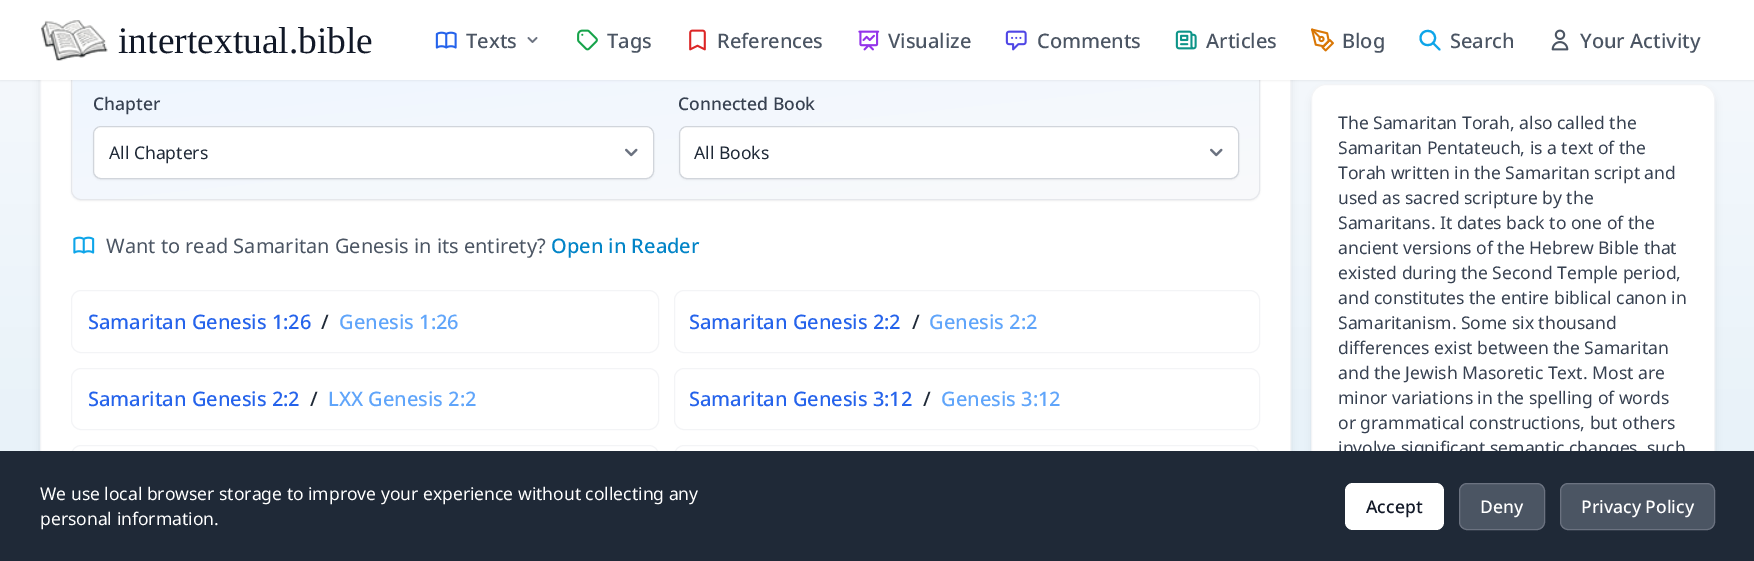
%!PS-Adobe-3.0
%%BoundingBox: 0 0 1754 561
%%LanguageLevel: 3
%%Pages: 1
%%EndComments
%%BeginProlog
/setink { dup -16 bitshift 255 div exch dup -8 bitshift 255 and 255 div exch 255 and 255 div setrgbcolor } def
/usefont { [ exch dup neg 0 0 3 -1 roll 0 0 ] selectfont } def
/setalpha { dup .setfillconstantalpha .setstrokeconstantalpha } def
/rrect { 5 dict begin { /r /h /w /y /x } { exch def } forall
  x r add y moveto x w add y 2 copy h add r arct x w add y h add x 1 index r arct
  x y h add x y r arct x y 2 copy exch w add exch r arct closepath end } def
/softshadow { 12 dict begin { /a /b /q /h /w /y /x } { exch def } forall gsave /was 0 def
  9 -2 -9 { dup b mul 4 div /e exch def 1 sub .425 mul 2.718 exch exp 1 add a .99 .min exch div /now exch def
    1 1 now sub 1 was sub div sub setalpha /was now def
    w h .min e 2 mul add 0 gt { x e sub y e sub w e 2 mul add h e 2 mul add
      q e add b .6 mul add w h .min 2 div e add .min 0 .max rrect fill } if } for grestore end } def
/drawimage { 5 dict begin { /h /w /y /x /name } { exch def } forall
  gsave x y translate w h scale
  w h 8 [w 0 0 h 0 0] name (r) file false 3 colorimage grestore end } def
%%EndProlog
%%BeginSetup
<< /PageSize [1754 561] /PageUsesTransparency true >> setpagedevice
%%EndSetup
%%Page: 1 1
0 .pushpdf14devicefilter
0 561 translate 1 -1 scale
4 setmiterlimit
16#FFFFFF setink
0 0 1754 561 rectfill
gsave 0 80 moveto 1754 80 lineto 1754 451 lineto 0 451 lineto closepath clip newpath
<< /ShadingType 2 /ColorSpace /DeviceRGB /Coords [878 0 878 561] /Extend [true true] /Function << /FunctionType 2 /Domain [0 1] /C0 [0.969 0.98 0.988] /C1 [0.894 0.941 0.976] /N 1 >> >> shfill grestore
16#000000 setink
41 -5 1249 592 14 4 0.1 softshadow
16#FFFFFF setink
41 80 1249 371 rectfill
16#F3F4F6 setink
40.5 -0.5 1250 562 rectstroke
16#000000 setink
71 71 1189 130 10 1 0.05 softshadow
gsave
71 70 1189 130 10 rrect clip newpath
gsave 71 80 moveto 73 80 lineto 73 199 lineto 71 199 lineto closepath clip newpath
<< /ShadingType 2 /ColorSpace /DeviceRGB /Coords [-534 9 -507 261] /Extend [true true] /Function << /FunctionType 2 /Domain [0 1] /C0 [0.937 0.965 1] /C1 [0.976 0.98 0.984] /N 1 >> >> shfill grestore
gsave 73 80 moveto 1259 80 lineto 1259 199 lineto 73 199 lineto closepath clip newpath
<< /ShadingType 2 /ColorSpace /DeviceRGB /Coords [652 9 679 261] /Extend [true true] /Function << /FunctionType 2 /Domain [0 1] /C0 [0.937 0.965 1] /C1 [0.976 0.98 0.984] /N 1 >> >> shfill grestore
grestore
16#E5E7EB setink
71.5 70.5 1188 129 9.5 rrect stroke
16#000000 setink
1313 90 401 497 14 4 0.1 softshadow
16#FFFFFF setink
1311.5 84.5 403 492 14.5 rrect gsave fill grestore
16#F3F4F6 setink
stroke
16#000000 setink
0 1 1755 80 0 1 0.05 softshadow
16#FFFFFF setink
0 0 1754 80 rectfill
(img1.raw) 40 20 68 41 drawimage
/LiberationSerif-Regular 37.5 usefont
16#111827 setink
118 53 moveto (intertextual.bible) show
(img2.raw) 435 31 22 18 drawimage
/NotoSans-Medium 20 usefont
16#4B5563 setink
466 48 moveto (Texts) show
(img3.raw) 527 37 11 6 drawimage
(img4.raw) 577 29 21 22 drawimage
607 48 moveto (Tags) show
(img5.raw) 689 29 17 22 drawimage
717 48 moveto (References) show
(img6.raw) 858 30 22 21 drawimage
888 48 moveto (Visualize) show
(img7.raw) 1005 30 22 21 drawimage
1037 48 moveto (Comments) show
(img8.raw) 1175 30 22 20 drawimage
1206 48 moveto (Articles) show
(img9.raw) 1311 28 23 24 drawimage
1342 48 moveto (Blog) show
16#0EA5E9 setink
2.1 setlinewidth
1 setlinecap
1 setlinejoin
1439.5 49.5 moveto 1433 43 lineto 1435 38 moveto 1435 47.5 1420.5 47.5 1420.5 38 curveto 1420.5 28.5 1435 28.5 1435 38 curveto closepath stroke
16#4B5563 setink
1450 48 moveto (Search) show
(img10.raw) 1551 29 18 22 drawimage
1580 48 moveto (Your Activity) show
/NotoSans-Medium 17.5 usefont
16#374151 setink
93 110 moveto (Chapter) show
16#000000 setink
93 128 561 52 8 1 0.05 softshadow
16#FFFFFF setink
93.5 126.5 560 52 7.5 rrect gsave fill grestore
16#D1D5DB setink
1 setlinewidth
0 setlinecap
0 setlinejoin
stroke
/NotoSans-Regular 17.5 usefont
16#1F2937 setink
109 159 moveto (All Chapters) show
(img11.raw) 625 148 13 9 drawimage
/NotoSans-Medium 17.5 usefont
16#374151 setink
678 110 moveto (Connected Book) show
16#000000 setink
679 128 560 52 8 1 0.05 softshadow
16#FFFFFF setink
679.5 126.5 559 52 7.5 rrect gsave fill grestore
16#D1D5DB setink
stroke
/NotoSans-Regular 17.5 usefont
16#1F2937 setink
694 159 moveto (All Books) show
(img11.raw) 1210 148 13 9 drawimage
(img12.raw) 73 236 22 18 drawimage
/NotoSans-Regular 20 usefont
16#4B5563 setink
106 253 moveto (Want to read Samaritan Genesis in its entirety?) show
/NotoSans-Medium 20 usefont
16#0284C7 setink
551 253 moveto (Open in Reader) show
16#F3F4F6 setink
71.5 290.5 587 62 9.5 rrect stroke
16#2563EB setink
88 329 moveto (Samaritan Genesis 1:26) show
16#1F2937 setink
321 329 moveto (/) show
16#60A5FA setink
339 329 moveto (Genesis 1:26) show
16#F3F4F6 setink
674.5 290.5 585 62 9.5 rrect stroke
16#2563EB setink
689 329 moveto (Samaritan Genesis 2:2) show
16#1F2937 setink
912 329 moveto (/) show
16#60A5FA setink
929 329 moveto (Genesis 2:2) show
16#F3F4F6 setink
71.5 368.5 587 61 9.5 rrect stroke
16#2563EB setink
88 406 moveto (Samaritan Genesis 2:2) show
16#1F2937 setink
310 406 moveto (/) show
16#60A5FA setink
328 406 moveto (LXX Genesis 2:2) show
16#F3F4F6 setink
674.5 368.5 585 61 9.5 rrect stroke
16#2563EB setink
689 406 moveto (Samaritan Genesis 3:12) show
16#1F2937 setink
923 406 moveto (/) show
16#60A5FA setink
941 406 moveto (Genesis 3:12) show
16#F3F4F6 setink
71.5 445.5 587 62 9.5 rrect stroke
674.5 445.5 585 62 9.5 rrect stroke
/NotoSans-Regular 17.5 usefont
16#374151 setink
[
    [(The Samaritan Torah, also called the) 1338 129]
    [(Samaritan Pentateuch, is a text of the) 1338 154]
    [(Torah written in the Samaritan script and) 1338 179]
    [(used as sacred scripture by the) 1338 204]
    [(Samaritans. It dates back to one of the) 1338 229]
    [(ancient versions of the Hebrew Bible that) 1338 254]
    [(existed during the Second Temple period,) 1338 279]
    [(and constitutes the entire biblical canon in) 1338 304]
    [(Samaritanism. Some six thousand) 1338 329]
    [(differences exist between the Samaritan) 1338 354]
    [(and the Jewish Masoretic Text. Most are) 1338 379]
    [(minor variations in the spelling of words) 1338 404]
    [(or grammatical constructions, but others) 1338 429]
    [(involve significant semantic changes, such) 1338 454]
] { aload pop moveto show } forall
16#1F2937 setink
0 451 1754 110 rectfill
16#FFFFFF setink
40 500 moveto (We use local browser storage to improve your experience without collecting any) show
40 525 moveto (personal information.) show
1345 483 99 47 8 rrect fill
/NotoSans-Medium 17.5 usefont
16#111827 setink
1366 513 moveto (Accept) show
16#4B5563 setink
1459.5 483.5 85 46 7.5 rrect gsave fill grestore
16#6B7280 setink
stroke
16#FFFFFF setink
1480 513 moveto (Deny) show
16#4B5563 setink
1560.5 483.5 154 46 7.5 rrect gsave fill grestore
16#6B7280 setink
stroke
16#FFFFFF setink
1581 513 moveto (Privacy Policy) show
.poppdf14devicefilter showpage
%%EOF
